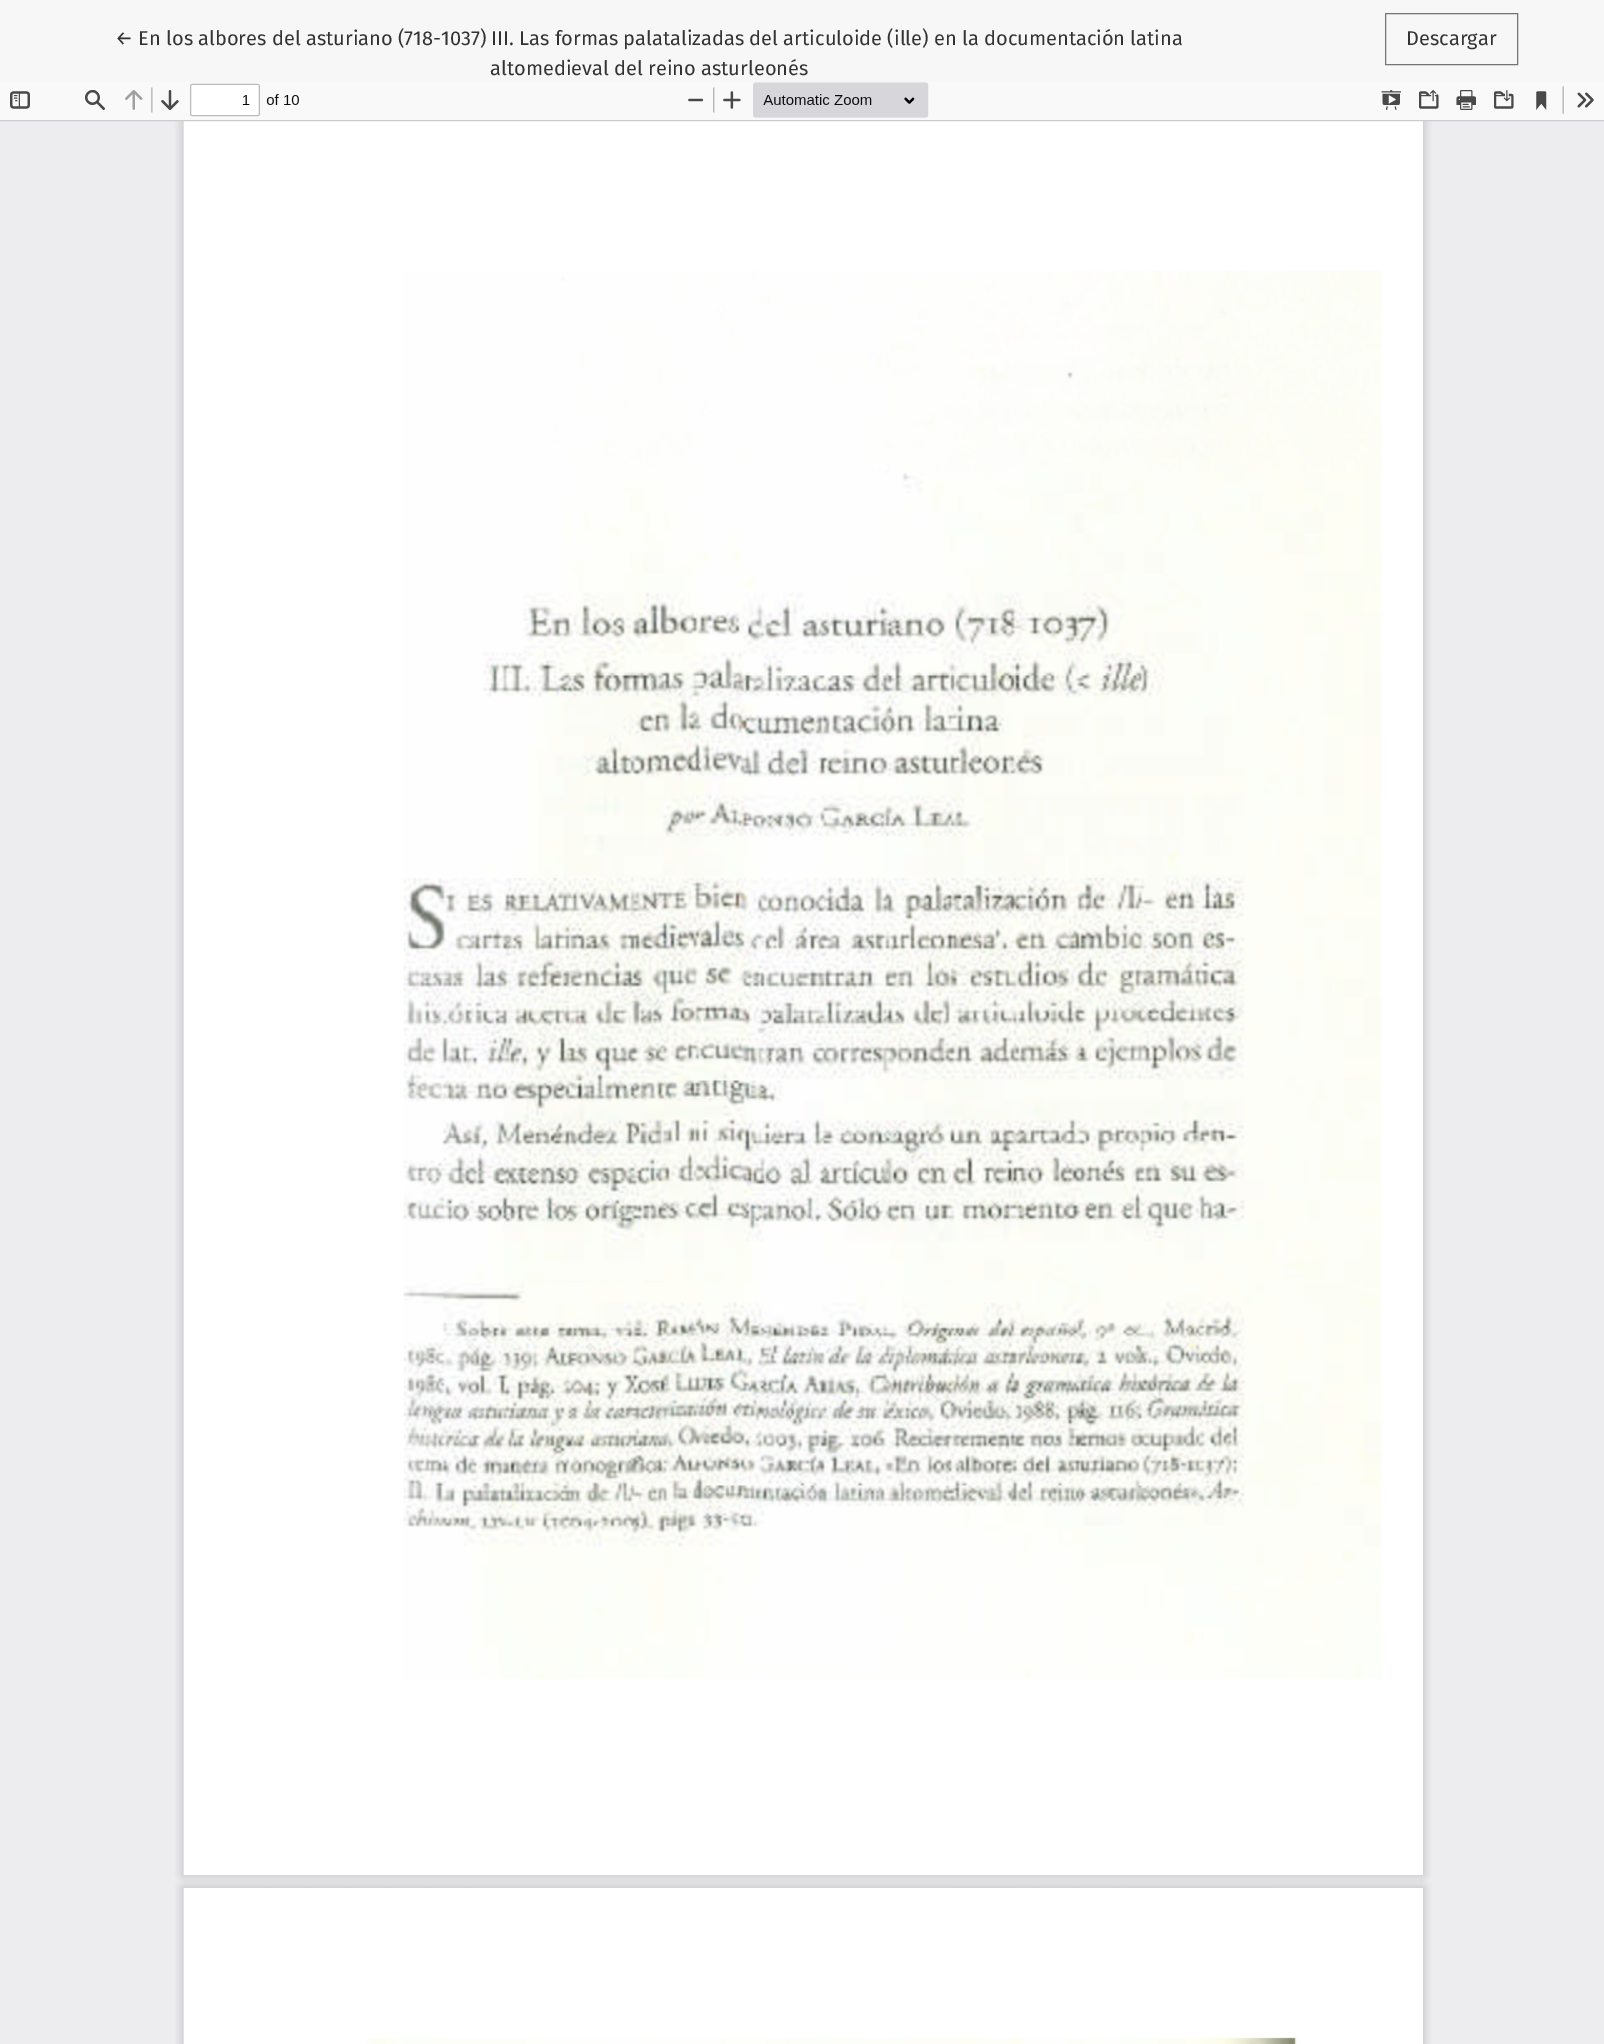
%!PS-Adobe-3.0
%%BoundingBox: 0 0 1604 2044
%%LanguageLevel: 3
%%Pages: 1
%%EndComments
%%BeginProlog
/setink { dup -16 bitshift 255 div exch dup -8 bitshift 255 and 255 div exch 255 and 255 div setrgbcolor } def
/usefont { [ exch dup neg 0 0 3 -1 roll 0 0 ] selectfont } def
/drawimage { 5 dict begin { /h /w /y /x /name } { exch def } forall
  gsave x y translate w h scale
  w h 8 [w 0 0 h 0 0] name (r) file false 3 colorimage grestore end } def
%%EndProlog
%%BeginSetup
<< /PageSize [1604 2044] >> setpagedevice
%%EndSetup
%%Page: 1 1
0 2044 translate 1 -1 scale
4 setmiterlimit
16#F7F7F7 setink
0 0 1604 2044 rectfill
/FiraSans-Regular 20 usefont
16#333333 setink
115 45 moveto (← En los albores del asturiano \(718-1037\) III. Las formas palatalizadas del articuloide \(ille\) en la documentación latina) show
490 75 moveto (altomedieval del reino asturleonés) show
16#757575 setink
1385.5 13.5 132 51 rectstroke
16#333333 setink
1406 45 moveto (Descargar) show
(img1.raw) 0 82 1604 1962 drawimage
showpage
%%EOF
